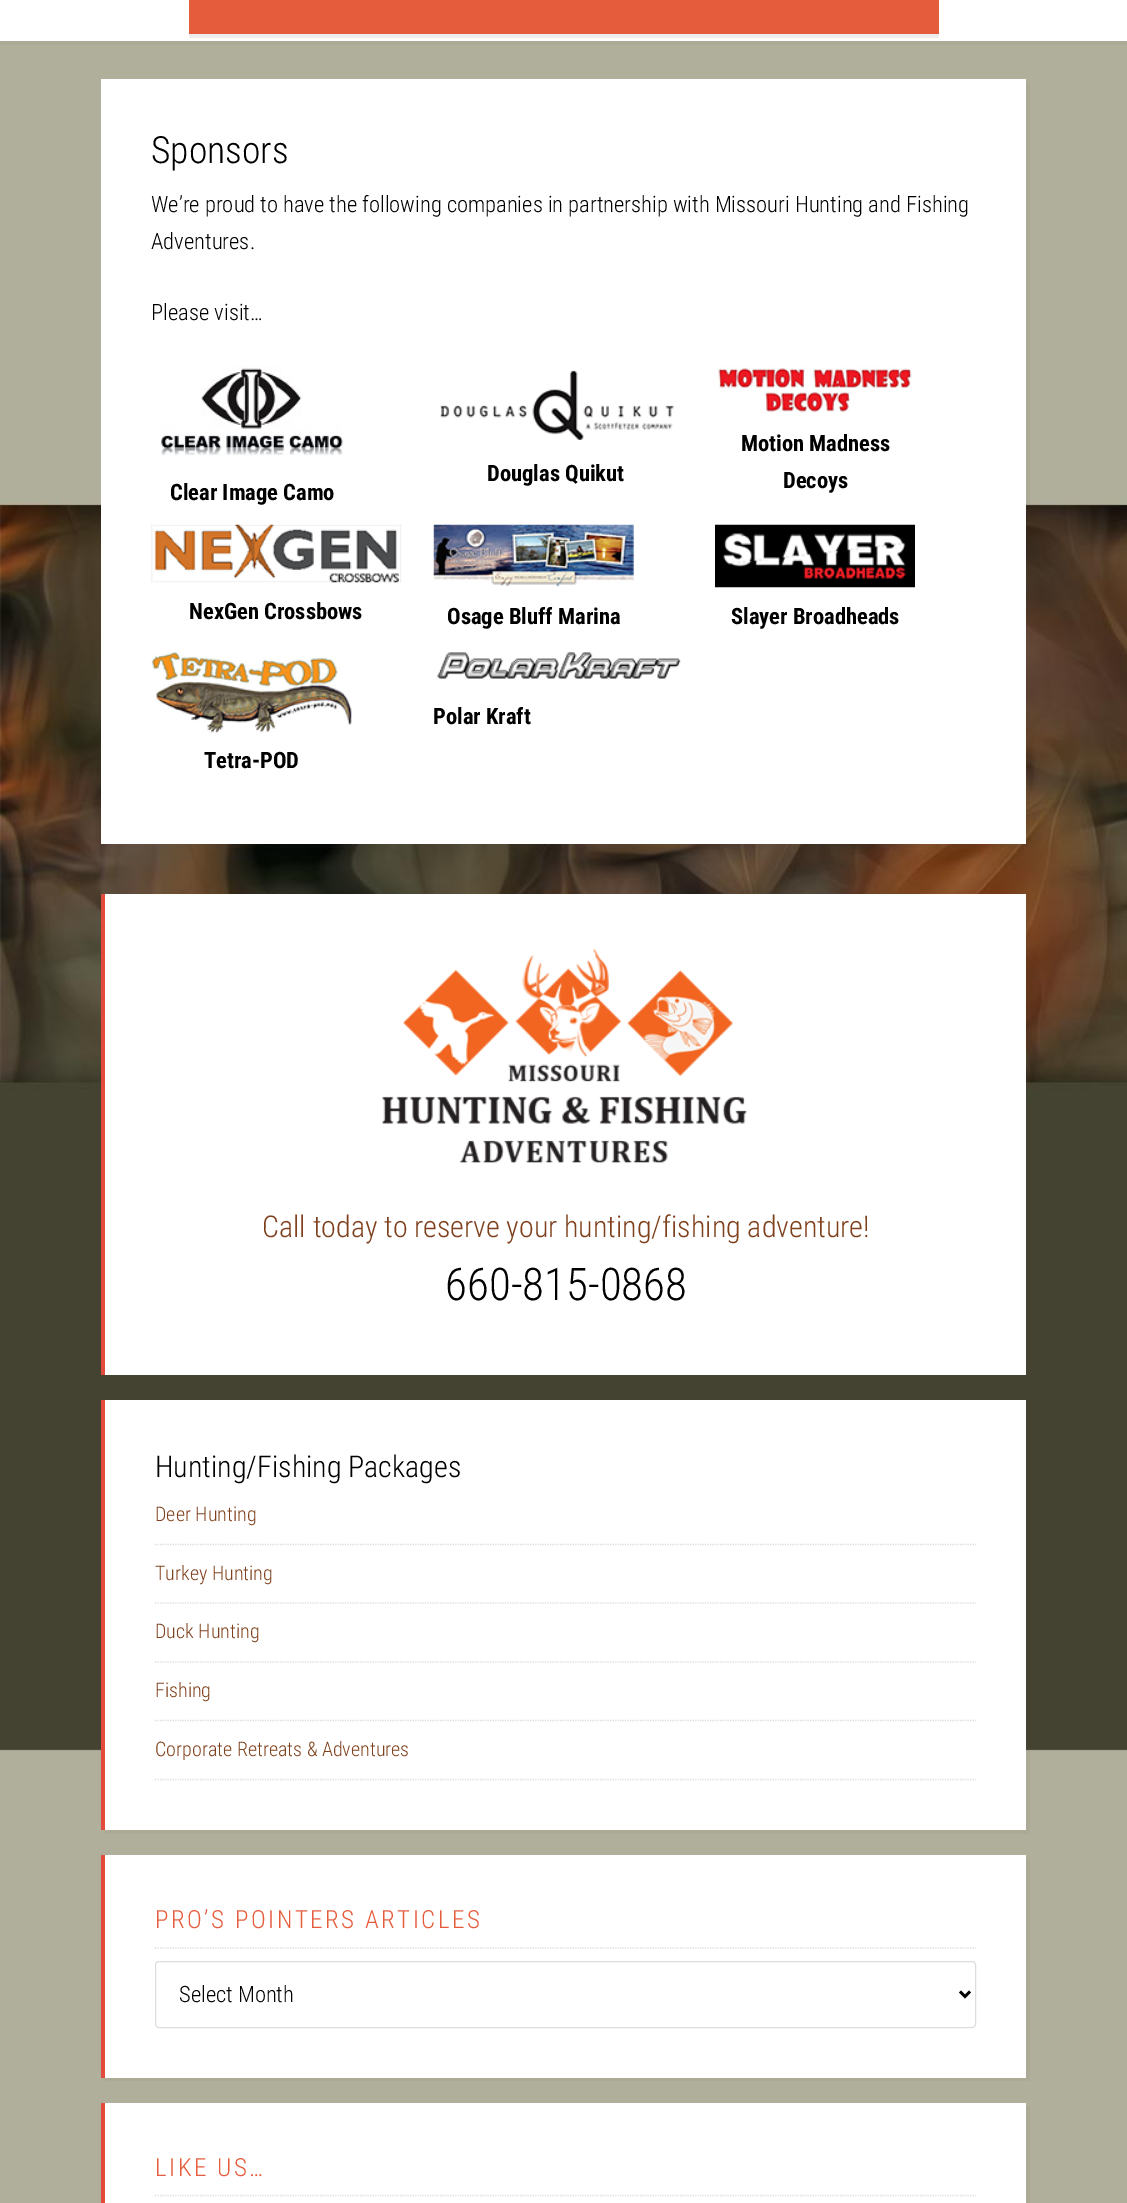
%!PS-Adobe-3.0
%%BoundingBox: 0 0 1127 2203
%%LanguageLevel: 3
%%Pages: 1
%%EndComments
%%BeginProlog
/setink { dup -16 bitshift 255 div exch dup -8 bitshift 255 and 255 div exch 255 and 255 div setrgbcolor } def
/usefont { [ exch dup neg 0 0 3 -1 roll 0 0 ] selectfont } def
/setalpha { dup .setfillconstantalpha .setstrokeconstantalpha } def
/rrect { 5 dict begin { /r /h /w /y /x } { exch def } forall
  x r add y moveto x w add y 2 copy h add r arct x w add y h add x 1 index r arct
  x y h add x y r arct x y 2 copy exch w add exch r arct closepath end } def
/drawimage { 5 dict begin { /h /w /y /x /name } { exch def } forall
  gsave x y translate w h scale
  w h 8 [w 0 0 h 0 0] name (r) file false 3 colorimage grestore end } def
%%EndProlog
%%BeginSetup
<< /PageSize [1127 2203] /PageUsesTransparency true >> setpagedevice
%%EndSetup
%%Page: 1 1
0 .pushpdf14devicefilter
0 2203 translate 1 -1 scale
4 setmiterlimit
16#FFFFFF setink
0 0 1127 2203 rectfill
(img1.raw) 0 45 1127 2158 drawimage
16#ABAA97 setink
0 41 moveto 0 45 lineto 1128 45 lineto 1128 -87 lineto 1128 41 lineto closepath fill
16#EDEDED setink
189 34 moveto 189 38 lineto 939 38 lineto 939 -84 lineto 939 34 lineto closepath fill
16#E45C3C setink
189 0 750 34 rectfill
0.05 setalpha
16#464646 setink
105 844 moveto 105 848 lineto 1030 848 lineto 1030 83 lineto 1026 83 lineto 1026 844 lineto closepath fill
1 setalpha
16#FFFFFF setink
101 79 925 765 rectfill
/RobotoCondensed-Light 37.5 usefont
16#000000 setink
151 163 moveto (Sponsors) show
/RobotoCondensed-Light 22.5 usefont
[
    [(We’re proud to have the following companies in partnership with Missouri Hunting and Fishing) 151 212]
    [(Adventures.) 151 249]
    [(Please visit…) 151 320]
] { aload pop moveto show } forall
(img2.raw) 440 370 234 70 drawimage
/RobotoCondensed-Bold 22.5 usefont
487 481 moveto (Douglas Quikut) show
(img3.raw) 717 366 195 47 drawimage
741 451 moveto (Motion Madness) show
783 488 moveto (Decoys) show
(img4.raw) 161 366 182 90 drawimage
170 500 moveto (Clear Image Camo) show
(img5.raw) 151 524 251 59 drawimage
189 619 moveto (NexGen Crossbows) show
(img6.raw) 433 524 201 63 drawimage
447 624 moveto (Osage Bluff Marina) show
(img7.raw) 715 524 200 64 drawimage
731 624 moveto (Slayer Broadheads) show
(img8.raw) 437 652 244 27 drawimage
433 724 moveto (Polar Kraft) show
(img9.raw) 151 650 201 83 drawimage
204 768 moveto (Tetra-POD) show
0.05 setalpha
16#464646 setink
105 1375 moveto 105 1379 lineto 1030 1379 lineto 1030 898 lineto 1026 898 lineto 1026 1375 lineto closepath fill
1 setalpha
16#FFFFFF setink
105 894 921 481 rectfill
16#E44A3C setink
101 894 4 481 rectfill
(img10.raw) 382 948 365 215 drawimage
/RobotoCondensed-Light 30 usefont
16#7F411D setink
262 1237 moveto (Call today to reserve your hunting/fishing adventure!) show
/RobotoCondensed-Light 45 usefont
16#000000 setink
445 1300 moveto (660-815-0868) show
0.05 setalpha
16#464646 setink
105 1830 moveto 105 1834 lineto 1030 1834 lineto 1030 1404 lineto 1026 1404 lineto 1026 1830 lineto closepath fill
1 setalpha
16#FFFFFF setink
105 1400 921 430 rectfill
16#E44A3C setink
101 1400 4 430 rectfill
/RobotoCondensed-Light 30 usefont
16#000000 setink
155 1477 moveto (Hunting/Fishing Packages) show
16#DDDDDD setink
1.2 setlinewidth
[1.25 1.25] 0 setdash
155 1544.5 moveto 976 1544.5 lineto stroke
/RobotoCondensed-Light 20 usefont
16#7F411D setink
155 1521 moveto (Deer Hunting) show
16#DDDDDD setink
155 1603 moveto 976 1603 lineto stroke
16#7F411D setink
155 1580 moveto (Turkey Hunting) show
16#DDDDDD setink
155 1662 moveto 976 1662 lineto stroke
16#7F411D setink
155 1638 moveto (Duck Hunting) show
16#DDDDDD setink
155 1720.5 moveto 976 1720.5 lineto stroke
16#7F411D setink
155 1697 moveto (Fishing) show
16#DDDDDD setink
155 1779.5 moveto 976 1779.5 lineto stroke
16#7F411D setink
155 1756 moveto (Corporate Retreats & Adventures) show
16#ABAA97 setink
105 2078 moveto 105 2081 lineto 1030 2081 lineto 1030 1859 lineto 1026 1859 lineto 1026 2078 lineto closepath fill
16#FFFFFF setink
105 1855 921 223 rectfill
16#E44A3C setink
101 1855 4 223 rectfill
16#DDDDDD setink
155 1948 moveto 976 1948 lineto stroke
/RobotoCondensed-Light 25 usefont
16#E45C3C setink
155 1928 moveto 2.5 0 (PRO’S POINTERS ARTICLES) ashow
16#DDDDDD setink
1 setlinewidth
[] 0 setdash
155.5 1961.5 820 66 3.5 rrect stroke
16#000000 setink
2.5 setlinewidth
960 1991.5 moveto 965 1996.5 lineto 970 1991.5 lineto stroke
/RobotoCondensed-Light 22.5 usefont
179 2002 moveto (Select Month) show
16#ABAA97 setink
105 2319 moveto 105 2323 lineto 1030 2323 lineto 1030 2106 lineto 1026 2106 lineto 1026 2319 lineto closepath fill
16#FFFFFF setink
105 2103 921 100 rectfill
16#E44A3C setink
101 2103 4 100 rectfill
16#DDDDDD setink
1.2 setlinewidth
[1.25 1.25] 0 setdash
155 2195.5 moveto 976 2195.5 lineto stroke
/RobotoCondensed-Light 25 usefont
16#E45C3C setink
155 2176 moveto 2.5 0 (LIKE US…) ashow
.poppdf14devicefilter showpage
%%EOF
